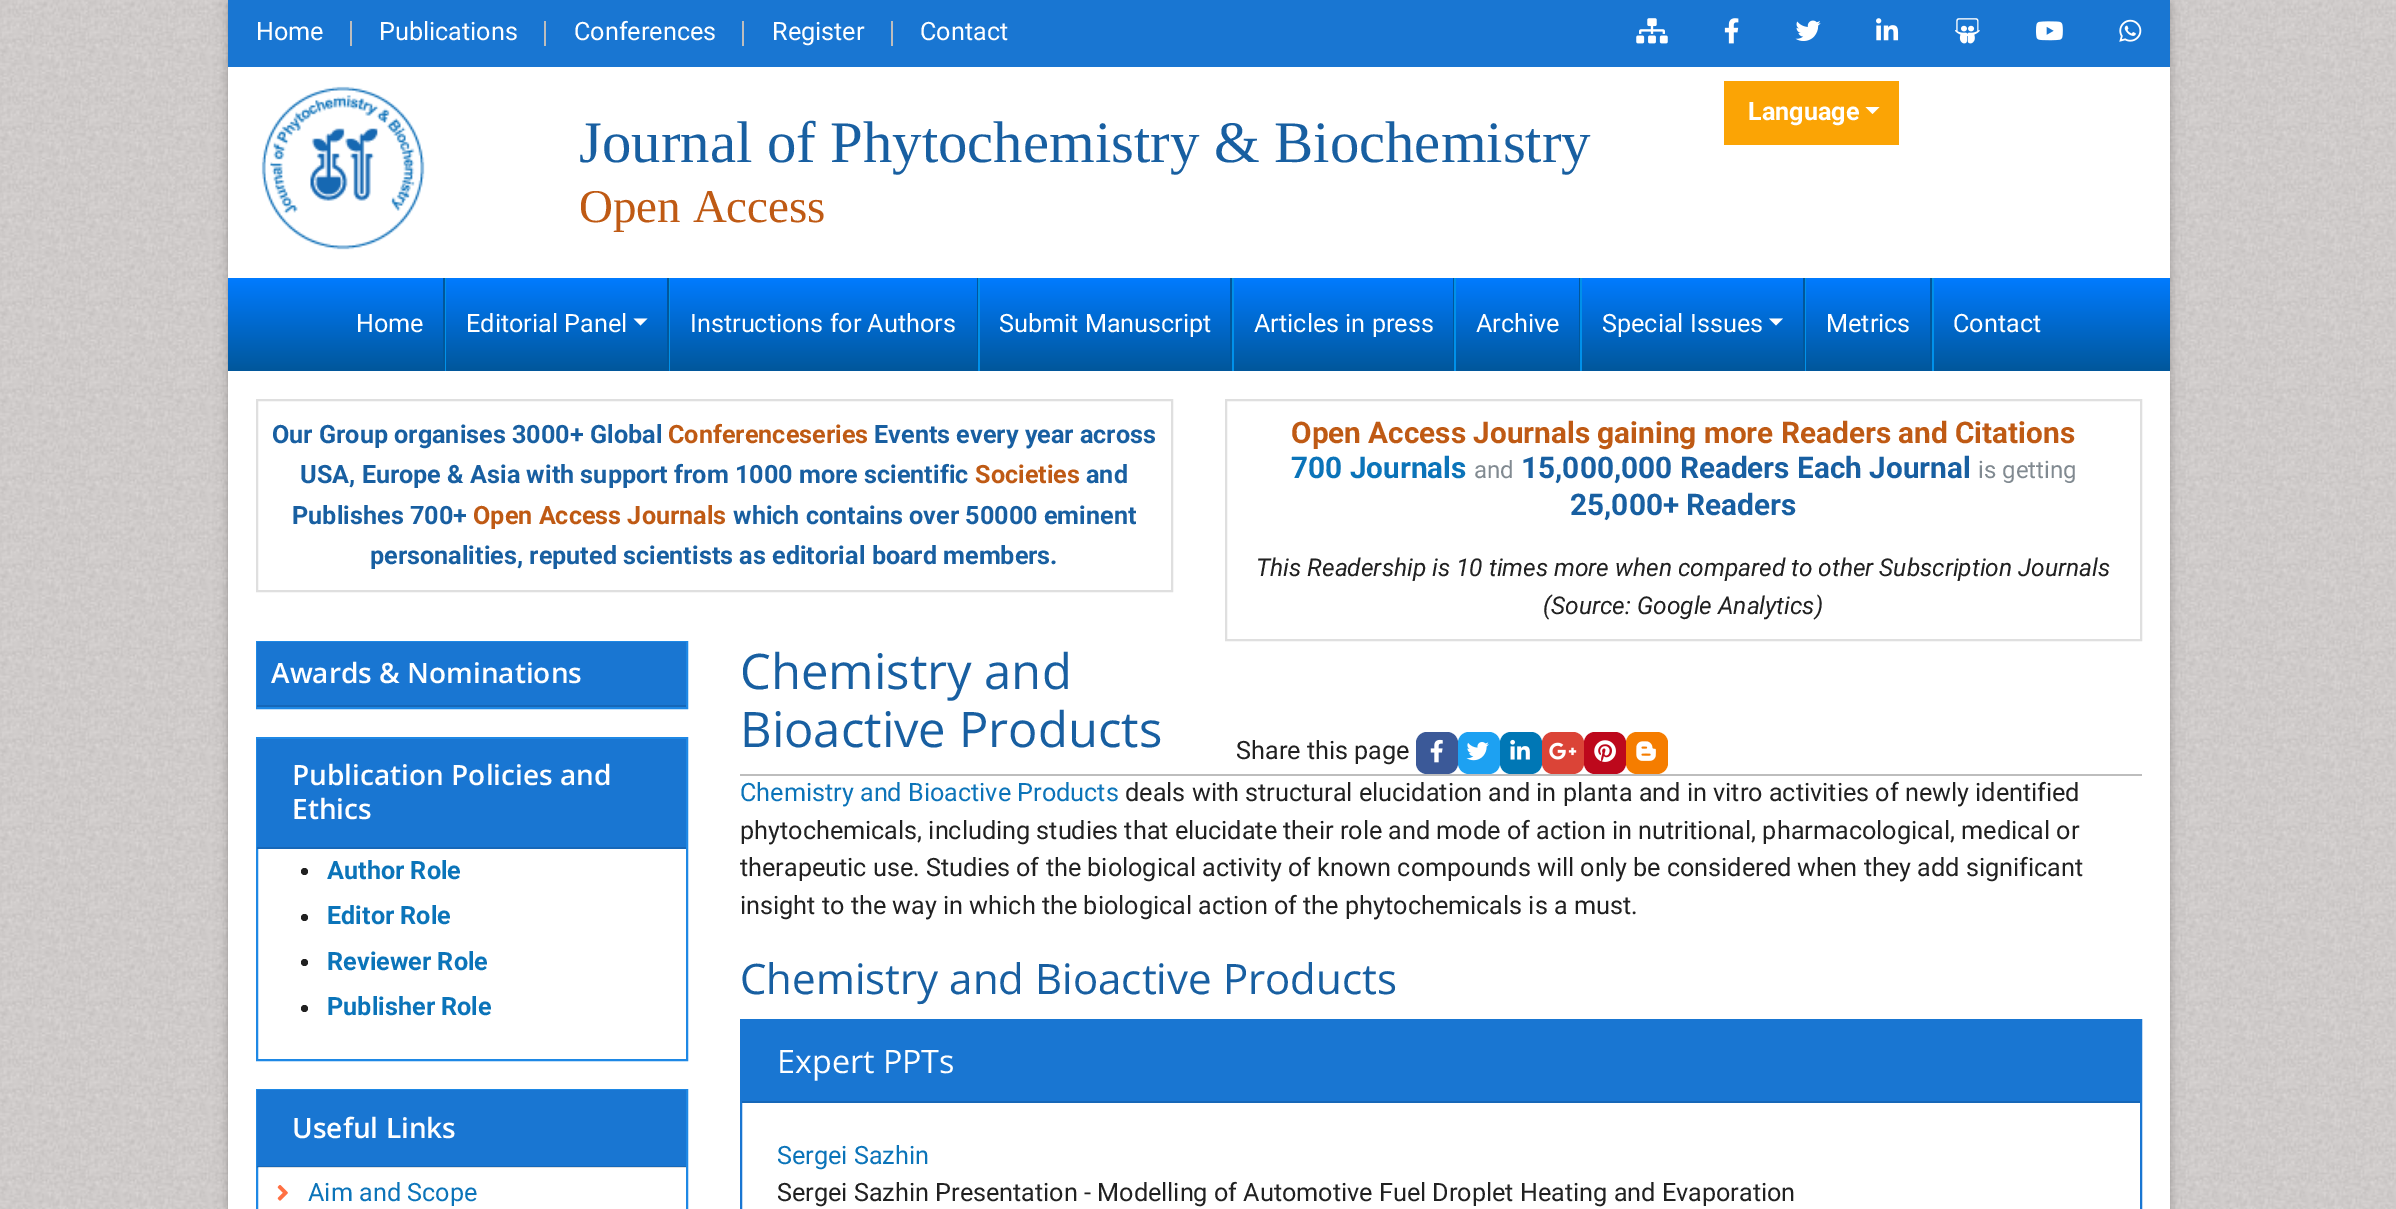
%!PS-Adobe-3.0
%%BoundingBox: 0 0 2396 1209
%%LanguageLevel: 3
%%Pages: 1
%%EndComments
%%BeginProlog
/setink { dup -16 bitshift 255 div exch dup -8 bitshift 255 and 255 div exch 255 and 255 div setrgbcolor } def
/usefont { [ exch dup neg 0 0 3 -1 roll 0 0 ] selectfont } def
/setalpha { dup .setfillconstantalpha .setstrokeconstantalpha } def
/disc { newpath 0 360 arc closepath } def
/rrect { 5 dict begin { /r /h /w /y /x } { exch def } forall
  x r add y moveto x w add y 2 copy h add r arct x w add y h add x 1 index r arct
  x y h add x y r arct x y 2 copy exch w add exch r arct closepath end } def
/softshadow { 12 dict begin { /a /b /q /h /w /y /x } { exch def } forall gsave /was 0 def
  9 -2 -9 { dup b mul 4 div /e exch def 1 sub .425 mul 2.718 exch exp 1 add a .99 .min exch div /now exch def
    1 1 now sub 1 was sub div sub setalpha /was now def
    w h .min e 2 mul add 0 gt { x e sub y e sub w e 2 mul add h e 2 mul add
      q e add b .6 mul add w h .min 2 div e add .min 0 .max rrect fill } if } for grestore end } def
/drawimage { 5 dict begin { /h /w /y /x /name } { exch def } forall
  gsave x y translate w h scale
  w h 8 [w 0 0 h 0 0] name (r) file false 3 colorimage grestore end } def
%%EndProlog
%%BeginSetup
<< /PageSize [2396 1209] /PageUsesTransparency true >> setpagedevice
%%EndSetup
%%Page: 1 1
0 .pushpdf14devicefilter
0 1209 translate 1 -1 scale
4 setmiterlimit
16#FFFFFF setink
0 0 2396 1209 rectfill
(img1.raw) 0 0 2396 1209 drawimage
16#000000 setink
228 2 1942 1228 0 7 0.12 softshadow
228 5 1942 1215 0 3.5 0.14 softshadow
16#FFFFFF setink
228 67 1942 1142 rectfill
16#1976D2 setink
228 0 1942 67 rectfill
/Roboto-Regular 25.2 usefont
16#FFFFFF setink
256 40 moveto (Home) show
16#BDBDBD setink
350 21 2 25 rectfill
16#FFFFFF setink
379 40 moveto (Publications) show
16#BDBDBD setink
544 21 2 25 rectfill
16#FFFFFF setink
574 40 moveto (Conferences) show
16#BDBDBD setink
742 21 2 25 rectfill
16#FFFFFF setink
772 40 moveto (Register) show
16#BDBDBD setink
891 21 2 25 rectfill
16#FFFFFF setink
920 40 moveto (Contact) show
(img2.raw) 1636 18 32 26 drawimage
(img3.raw) 1724 18 15 26 drawimage
(img4.raw) 1795 20 26 21 drawimage
(img5.raw) 1876 18 23 23 drawimage
(img6.raw) 1955 18 25 26 drawimage
(img7.raw) 2036 21 27 20 drawimage
(img8.raw) 2119 19 23 23 drawimage
(img9.raw) 261 86 164 164 drawimage
16#FBA405 setink
1724 81 175 64 rectfill
/Roboto-Bold 25.2 usefont
16#FFFFFF setink
1748 120 moveto (Language) show
1865.5 107 moveto 1879.5 107 lineto 1872.5 114 lineto closepath fill
/LiberationSerif-Regular 58.75 usefont
16#185FA1 setink
579 162 moveto (Journal of Phytochemistry & Biochemistry) show
/LiberationSerif-Regular 47 usefont
16#BF5A14 setink
579 222 moveto (Open Access) show
gsave 228 278 moveto 2170 278 lineto 2170 371 lineto 228 371 lineto closepath clip newpath
<< /ShadingType 2 /ColorSpace /DeviceRGB /Coords [1199 278 1199 371] /Extend [true true] /Function << /FunctionType 2 /Domain [0 1] /C0 [0 0.482 1] /C1 [0.004 0.341 0.608] /N 1 >> >> shfill grestore
16#01579B setink
443 278 2 93 rectfill
/Roboto-Regular 25.2 usefont
16#FFFFFF setink
356 332 moveto (Home) show
16#01579B setink
667 278 2 93 rectfill
16#0091EA setink
445 278 1 93 rectfill
16#FFFFFF setink
466 332 moveto (Editorial Panel) show
633.5 318.5 moveto 647.5 318.5 lineto 640.5 325.5 lineto closepath fill
16#01579B setink
977 278 1 93 rectfill
16#0091EA setink
669 278 1 93 rectfill
16#FFFFFF setink
690 332 moveto (Instructions for Authors) show
16#01579B setink
1230 278 2 93 rectfill
16#0091EA setink
978 278 2 93 rectfill
16#FFFFFF setink
999 332 moveto (Submit Manuscript) show
16#01579B setink
1453 278 1 93 rectfill
16#0091EA setink
1232 278 2 93 rectfill
16#FFFFFF setink
1254 332 moveto (Articles in press) show
16#01579B setink
1579 278 1 93 rectfill
16#0091EA setink
1454 278 2 93 rectfill
16#FFFFFF setink
1476 332 moveto (Archive) show
16#01579B setink
1803 278 2 93 rectfill
16#0091EA setink
1580 278 2 93 rectfill
16#FFFFFF setink
1602 332 moveto (Special Issues) show
1769 318.5 moveto 1783 318.5 lineto 1776 325.5 lineto closepath fill
16#01579B setink
1930 278 2 93 rectfill
16#0091EA setink
1805 278 1 93 rectfill
16#FFFFFF setink
1826 332 moveto (Metrics) show
16#0091EA setink
1932 278 2 93 rectfill
16#FFFFFF setink
1953 332 moveto (Contact) show
16#DFDFDF setink
2 setlinewidth
257 400 915 191 rectstroke
/Roboto-Bold 25.2 usefont
16#185FA1 setink
272 443 moveto (Our Group organises 3000+ Global) show
16#BF5A14 setink
668 443 moveto (Conferenceseries) show
16#185FA1 setink
874 443 moveto (Events every year across) show
300 483 moveto (USA, Europe & Asia with support from 1000 more scientific) show
16#BF5A14 setink
975 483 moveto (Societies) show
16#185FA1 setink
1086 483 moveto (and) show
292 524 moveto (Publishes 700+) show
16#BF5A14 setink
473 524 moveto (Open Access Journals) show
16#185FA1 setink
733 524 moveto (which contains over 50000 eminent) show
370 564 moveto (personalities, reputed scientists as editorial board members.) show
16#DFDFDF setink
1226 400 915 240 rectstroke
/Roboto-Bold 29.75 usefont
16#BF5A14 setink
1291 443 moveto (Open Access Journals gaining more Readers and Citations) show
16#0B74B9 setink
1291 478 moveto (700 Journals) show
/Roboto-Regular 24 usefont
16#818A91 setink
1474 478 moveto (and) show
/Roboto-Bold 29.75 usefont
16#185FA1 setink
1521 478 moveto (15,000,000 Readers Each Journal) show
/Roboto-Regular 24 usefont
16#818A91 setink
1978 478 moveto (is getting) show
/Roboto-Bold 29.75 usefont
16#185FA1 setink
1570 515 moveto (25,000+ Readers) show
/Roboto-Italic 24.5 usefont
16#212121 setink
1256 576 moveto (This Readership is 10 times more when compared to other Subscription Journals) show
1543 614 moveto (\(Source: Google Analytics\)) show
16#1E88E5 setink
257 642 430 66 rectstroke
16#1976D2 setink
257 642 429 63 rectfill
16#1667B8 setink
257 705 429 2 rectfill
/OpenSans-SemiBold 28 usefont
16#FFFFFF setink
271 683 moveto (Awards & Nominations) show
16#1E88E5 setink
257 738 430 322 rectstroke
16#1976D2 setink
257 739 429 108 rectfill
16#1667B8 setink
257 847 429 2 rectfill
16#FFFFFF setink
292 785 moveto (Publication Policies and) show
292 819 moveto (Ethics) show
16#212121 setink
304.5 871.5 3.5 disc fill
/Roboto-Bold 25.2 usefont
16#0B74B9 setink
327 879 moveto (Author Role) show
16#212121 setink
304.5 917.5 3.5 disc fill
16#0B74B9 setink
327 924 moveto (Editor Role) show
16#212121 setink
304.5 962.5 3.5 disc fill
16#0B74B9 setink
327 970 moveto (Reviewer Role) show
16#212121 setink
304.5 1008.5 3.5 disc fill
16#0B74B9 setink
327 1015 moveto (Publisher Role) show
16#1E88E5 setink
257 1090 430 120 rectstroke
16#1976D2 setink
257 1090 429 77 rectfill
0.12 setalpha
16#000000 setink
257 1166 429 2 rectfill
/OpenSans-SemiBold 28 usefont
1 setalpha
16#FFFFFF setink
292 1138 moveto (Useful Links) show
(img10.raw) 277 1185 11 16 drawimage
/Roboto-Regular 25.2 usefont
16#0B74B9 setink
308 1201 moveto (Aim and Scope) show
16#BDBDBD setink
740 774 1402 2 rectfill
/OpenSans-Regular 49 usefont
16#185FA1 setink
740 689 moveto (Chemistry and) show
740 747 moveto (Bioactive Products) show
/Roboto-Regular 25.2 usefont
16#212121 setink
1236 759 moveto (Share this page) show
16#3B5998 setink
1416 732 42 42 11 rrect fill
(img11.raw) 1430 739 13 24 drawimage
16#1DA1F2 setink
1458 732 42 42 11 rrect fill
(img12.raw) 1466 742 23 19 drawimage
16#0077B5 setink
1500 732 42 42 11 rrect fill
(img13.raw) 1510 739 20 21 drawimage
16#DB4437 setink
1542 732 42 42 11 rrect fill
(img14.raw) 1549 742 28 18 drawimage
16#BD081C setink
1584 732 42 42 11 rrect fill
(img15.raw) 1594 740 22 22 drawimage
16#F57D00 setink
1626 732 42 42 11 rrect fill
(img16.raw) 1636 741 20 20 drawimage
16#0B74B9 setink
740 801 moveto (Chemistry and Bioactive Products) show
16#212121 setink
[
    [(deals with structural elucidation and in planta and in vitro activities of newly identified) 1125 801]
    [(phytochemicals, including studies that elucidate their role and mode of action in nutritional, pharmacological, medical or) 740 839]
    [(therapeutic use. Studies of the biological activity of known compounds will only be considered when they add significant) 740 876]
    [(insight to the way in which the biological action of the phytochemicals is a must.) 740 914]
] { aload pop moveto show } forall
/OpenSans-Regular 42 usefont
16#185FA1 setink
740 994 moveto (Chemistry and Bioactive Products) show
16#1976D2 setink
741 1020 1400 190 rectstroke
742 1021 1398 80 rectfill
16#1667B8 setink
742 1101 1398 2 rectfill
/OpenSans-Regular 32.25 usefont
16#FFFFFF setink
777 1073 moveto (Expert PPTs) show
/Roboto-Regular 25.2 usefont
16#0B74B9 setink
777 1164 moveto (Sergei Sazhin) show
16#212121 setink
777 1201 moveto (Sergei Sazhin Presentation - Modelling of Automotive Fuel Droplet Heating and Evaporation) show
.poppdf14devicefilter showpage
%%EOF
